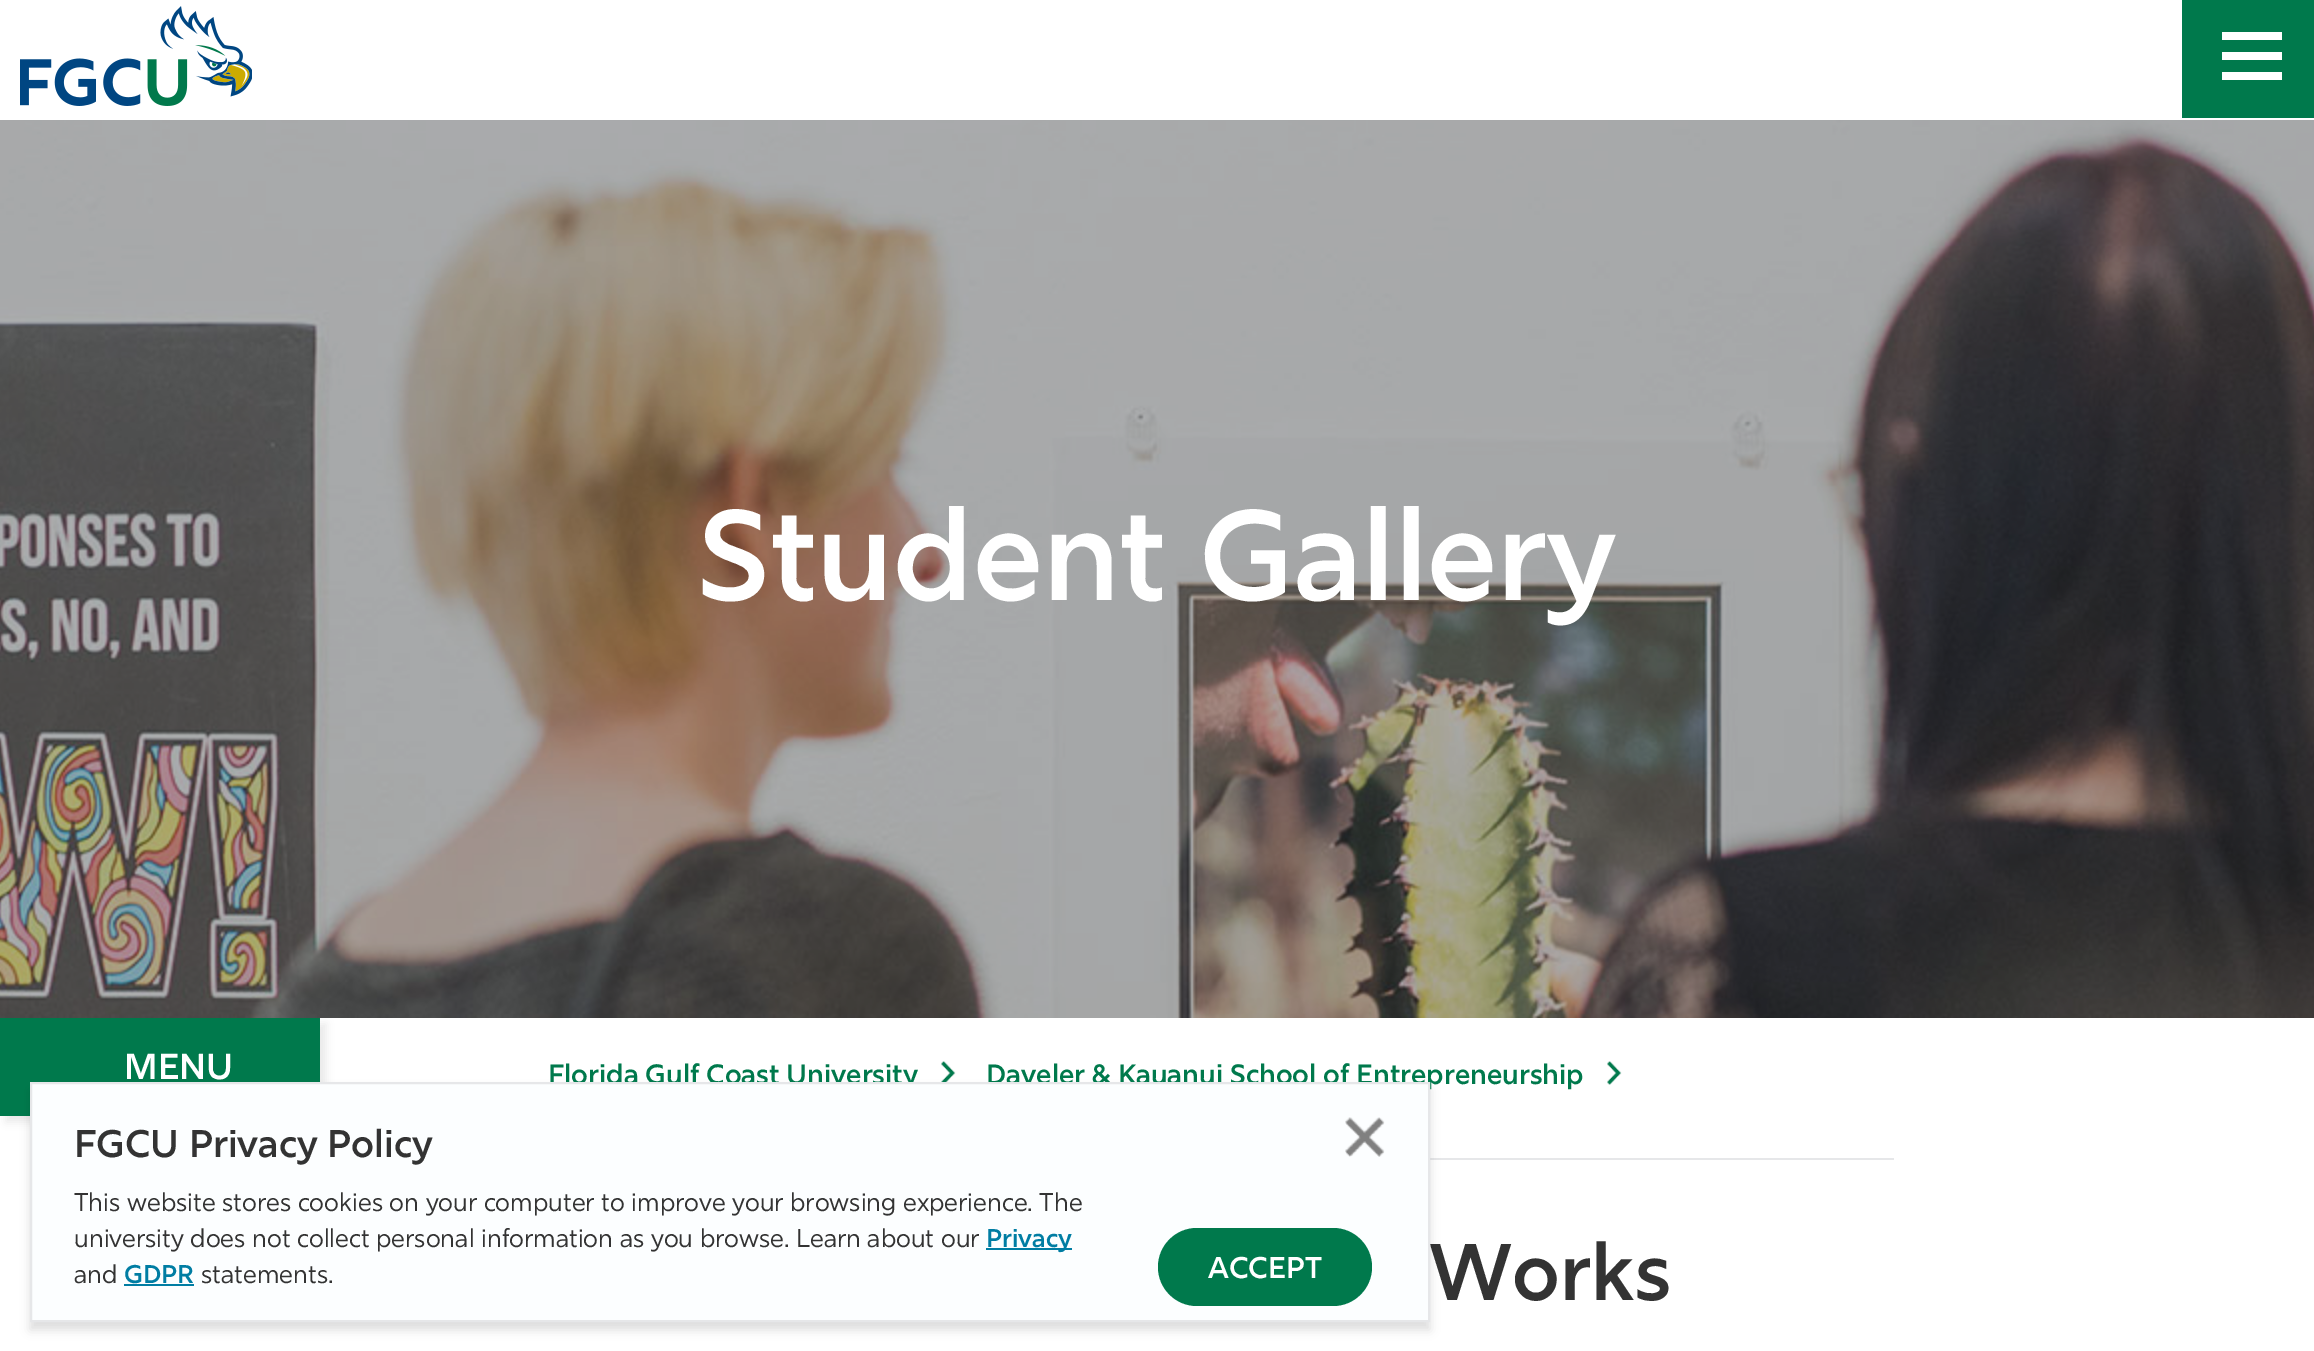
%!PS-Adobe-3.0
%%BoundingBox: 0 0 2314 1351
%%LanguageLevel: 3
%%Pages: 1
%%EndComments
%%BeginProlog
/setink { dup -16 bitshift 255 div exch dup -8 bitshift 255 and 255 div exch 255 and 255 div setrgbcolor } def
/usefont { [ exch dup neg 0 0 3 -1 roll 0 0 ] selectfont } def
/setalpha { dup .setfillconstantalpha .setstrokeconstantalpha } def
/rrect { 5 dict begin { /r /h /w /y /x } { exch def } forall
  x r add y moveto x w add y 2 copy h add r arct x w add y h add x 1 index r arct
  x y h add x y r arct x y 2 copy exch w add exch r arct closepath end } def
/softshadow { 12 dict begin { /a /b /q /h /w /y /x } { exch def } forall gsave /was 0 def
  9 -2 -9 { dup b mul 4 div /e exch def 1 sub .425 mul 2.718 exch exp 1 add a .99 .min exch div /now exch def
    1 1 now sub 1 was sub div sub setalpha /was now def
    w h .min e 2 mul add 0 gt { x e sub y e sub w e 2 mul add h e 2 mul add
      q e add b .6 mul add w h .min 2 div e add .min 0 .max rrect fill } if } for grestore end } def
/drawimage { 5 dict begin { /h /w /y /x /name } { exch def } forall
  gsave x y translate w h scale
  w h 8 [w 0 0 h 0 0] name (r) file false 3 colorimage grestore end } def
%%EndProlog
%%BeginSetup
<< /PageSize [2314 1351] /PageUsesTransparency true >> setpagedevice
%%EndSetup
%%Page: 1 1
0 .pushpdf14devicefilter
0 1351 translate 1 -1 scale
4 setmiterlimit
16#FFFFFF setink
0 0 2314 1351 rectfill
(img1.raw) 20 6 232 100 drawimage
[
    [2182 0 132 118 16#00794C]
    [2222 32 60 8 16#FFFFFF]
    [2222 52 60 8 16#FFFFFF]
    [2222 72 60 8 16#FFFFFF]
] { aload pop setink rectfill } forall
(img2.raw) 0 120 2314 898 drawimage
/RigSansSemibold-SemiBold 128 usefont
698 600 moveto (Student Gallery) show
16#000000 setink
6 1024 320 98 0 4 0.08 softshadow
16#00794C setink
0 1018 320 98 rectfill
/RigSansSemibold-SemiBold 36 usefont
16#FFFFFF setink
124 1079 moveto (MENU) show
16#E6E7E9 setink
1430 1158 464 2 rectfill
/RigSansSemibold-SemiBold 28 usefont
16#00794C setink
548 1084 moveto (Florida Gulf Coast University) show
(img3.raw) 941 1061 15 21 drawimage
986 1084 moveto (Daveler & Kauanui School of Entrepreneurship) show
(img4.raw) 1607 1061 15 24 drawimage
/RigSansSemibold-SemiBold 80 usefont
16#333333 setink
1429 1300 moveto (Works) show
16#FCFEFF setink
32 1084 1396 236 rectfill
gsave
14 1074 moveto 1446 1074 lineto 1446 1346 lineto 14 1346 lineto closepath 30 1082 moveto 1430 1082 lineto 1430 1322 lineto 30 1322 lineto closepath eoclip newpath
16#000000 setink
30 1090 1400 240 0 5 0.13 softshadow
grestore
16#E6E7E9 setink
2 setlinewidth
31 1083 1398 238 rectstroke
/RigSansSemibold-SemiBold 38.5 usefont
16#333333 setink
74 1157 moveto (FGCU Privacy Policy) show
/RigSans-Regular 25.6 usefont
74 1211 moveto (This website stores cookies on your computer to improve your browsing experience. The) show
74 1247 moveto (university does not collect personal information as you browse. Learn about our) show
16#007DA3 setink
986 1248 86 2 rectfill
/RigSansSemibold-SemiBold 25.6 usefont
986 1247 moveto (Privacy) show
/RigSans-Regular 25.6 usefont
16#333333 setink
74 1283 moveto (and) show
/RigSansSemibold-SemiBold 25.6 usefont
16#007DA3 setink
124 1283 moveto (GDPR) show
124 1284 70 2 rectfill
/RigSans-Regular 25.6 usefont
16#333333 setink
201 1283 moveto (statements.) show
16#00794C setink
1158 1228 214 78 39 rrect fill
/RigSansSemibold-SemiBold 30 usefont
16#FFFFFF setink
1208 1278 moveto (ACCEPT) show
(img5.raw) 1345 1117 40 40 drawimage
.poppdf14devicefilter showpage
%%EOF
